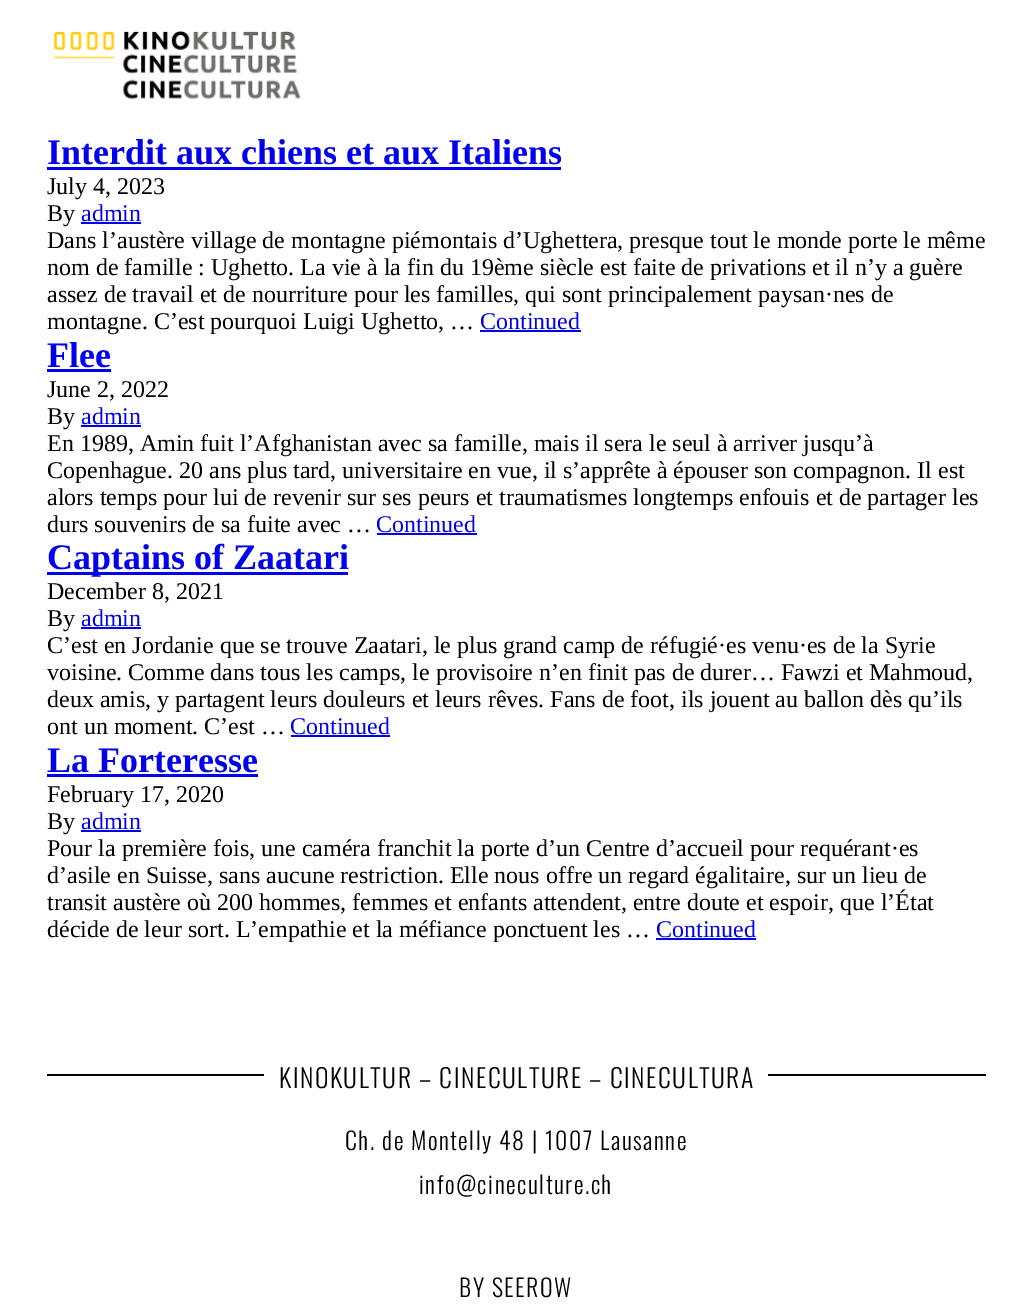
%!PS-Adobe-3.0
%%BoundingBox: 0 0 1015 1314
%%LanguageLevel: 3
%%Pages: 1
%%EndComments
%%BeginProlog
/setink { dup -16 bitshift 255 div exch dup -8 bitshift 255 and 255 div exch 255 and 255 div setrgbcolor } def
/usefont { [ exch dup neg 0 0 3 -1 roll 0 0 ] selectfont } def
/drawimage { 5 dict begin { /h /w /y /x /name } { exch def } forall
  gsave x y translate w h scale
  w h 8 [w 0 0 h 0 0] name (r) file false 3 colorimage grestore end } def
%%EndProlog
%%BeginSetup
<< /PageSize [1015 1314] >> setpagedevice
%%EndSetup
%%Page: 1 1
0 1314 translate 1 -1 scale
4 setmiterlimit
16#FFFFFF setink
0 0 1015 1314 rectfill
(img1.raw) 54 31 247 69 drawimage
/LiberationSerif-Bold 36 usefont
16#0000EE setink
47 164 moveto (Interdit aux chiens et aux Italiens) show
47 167 514 3 rectfill
/LiberationSerif-Regular 24 usefont
16#000000 setink
47 194 moveto (July 4, 2023) show
47 221 moveto (By) show
16#0000EE setink
81 221 moveto (admin) show
81 222 60 2 rectfill
16#000000 setink
[
    [(Dans l’austère village de montagne piémontais d’Ughettera, presque tout le monde porte le même) 47 248]
    [(nom de famille : Ughetto. La vie à la fin du 19ème siècle est faite de privations et il n’y a guère) 47 275]
    [(assez de travail et de nourriture pour les familles, qui sont principalement paysan·nes de) 47 302]
    [(montagne. C’est pourquoi Luigi Ughetto, …) 47 329]
] { aload pop moveto show } forall
16#0000EE setink
480 329 moveto (Continued) show
480 330 101 2 rectfill
/LiberationSerif-Bold 36 usefont
47 367 moveto (Flee) show
47 369 64 3 rectfill
/LiberationSerif-Regular 24 usefont
16#000000 setink
47 397 moveto (June 2, 2022) show
47 424 moveto (By) show
16#0000EE setink
81 424 moveto (admin) show
81 425 60 2 rectfill
16#000000 setink
[
    [(En 1989, Amin fuit l’Afghanistan avec sa famille, mais il sera le seul à arriver jusqu’à) 47 451]
    [(Copenhague. 20 ans plus tard, universitaire en vue, il s’apprête à épouser son compagnon. Il est) 47 478]
    [(alors temps pour lui de revenir sur ses peurs et traumatismes longtemps enfouis et de partager les) 47 505]
    [(durs souvenirs de sa fuite avec …) 47 532]
] { aload pop moveto show } forall
16#0000EE setink
376 532 moveto (Continued) show
377 533 100 2 rectfill
47 572 301 3 rectfill
/LiberationSerif-Bold 36 usefont
47 569 moveto (Captains of Zaatari) show
/LiberationSerif-Regular 24 usefont
16#000000 setink
47 599 moveto (December 8, 2021) show
47 626 moveto (By) show
16#0000EE setink
81 626 moveto (admin) show
81 627 60 2 rectfill
16#000000 setink
[
    [(C’est en Jordanie que se trouve Zaatari, le plus grand camp de réfugié·es venu·es de la Syrie) 47 653]
    [(voisine. Comme dans tous les camps, le provisoire n’en finit pas de durer… Fawzi et Mahmoud,) 47 680]
    [(deux amis, y partagent leurs douleurs et leurs rêves. Fans de foot, ils jouent au ballon dès qu’ils) 47 707]
    [(ont un moment. C’est …) 47 734]
] { aload pop moveto show } forall
16#0000EE setink
290 734 moveto (Continued) show
291 735 99 2 rectfill
/LiberationSerif-Bold 36 usefont
47 772 moveto (La Forteresse) show
47 774 211 3 rectfill
/LiberationSerif-Regular 24 usefont
16#000000 setink
47 802 moveto (February 17, 2020) show
47 829 moveto (By) show
16#0000EE setink
81 829 moveto (admin) show
81 830 60 2 rectfill
16#000000 setink
[
    [(Pour la première fois, une caméra franchit la porte d’un Centre d’accueil pour requérant·es) 47 856]
    [(d’asile en Suisse, sans aucune restriction. Elle nous offre un regard égalitaire, sur un lieu de) 47 883]
    [(transit austère où 200 hommes, femmes et enfants attendent, entre doute et espoir, que l’État) 47 910]
    [(décide de leur sort. L’empathie et la méfiance ponctuent les …) 47 937]
] { aload pop moveto show } forall
16#0000EE setink
656 937 moveto (Continued) show
[
    [656 938 100 2 16#0000EE]
    [47 1074 939 2 16#000000]
    [264 1074 504 2 16#FFFFFF]
] { aload pop setink rectfill } forall
/Oswald-Light 25.75 usefont
16#000000 setink
279 1088 moveto 1.5 0 (KINOKULTUR – CINECULTURE – CINECULTURA) ashow
/Oswald-Light 24 usefont
345 1150 moveto 1.5 0 (Ch. de Montelly 48 | 1007 Lausanne) ashow
419 1194 moveto 1.5 0 (info@cineculture.ch) ashow
459 1297 moveto 1.5 0 (BY SEEROW) ashow
showpage
%%EOF
